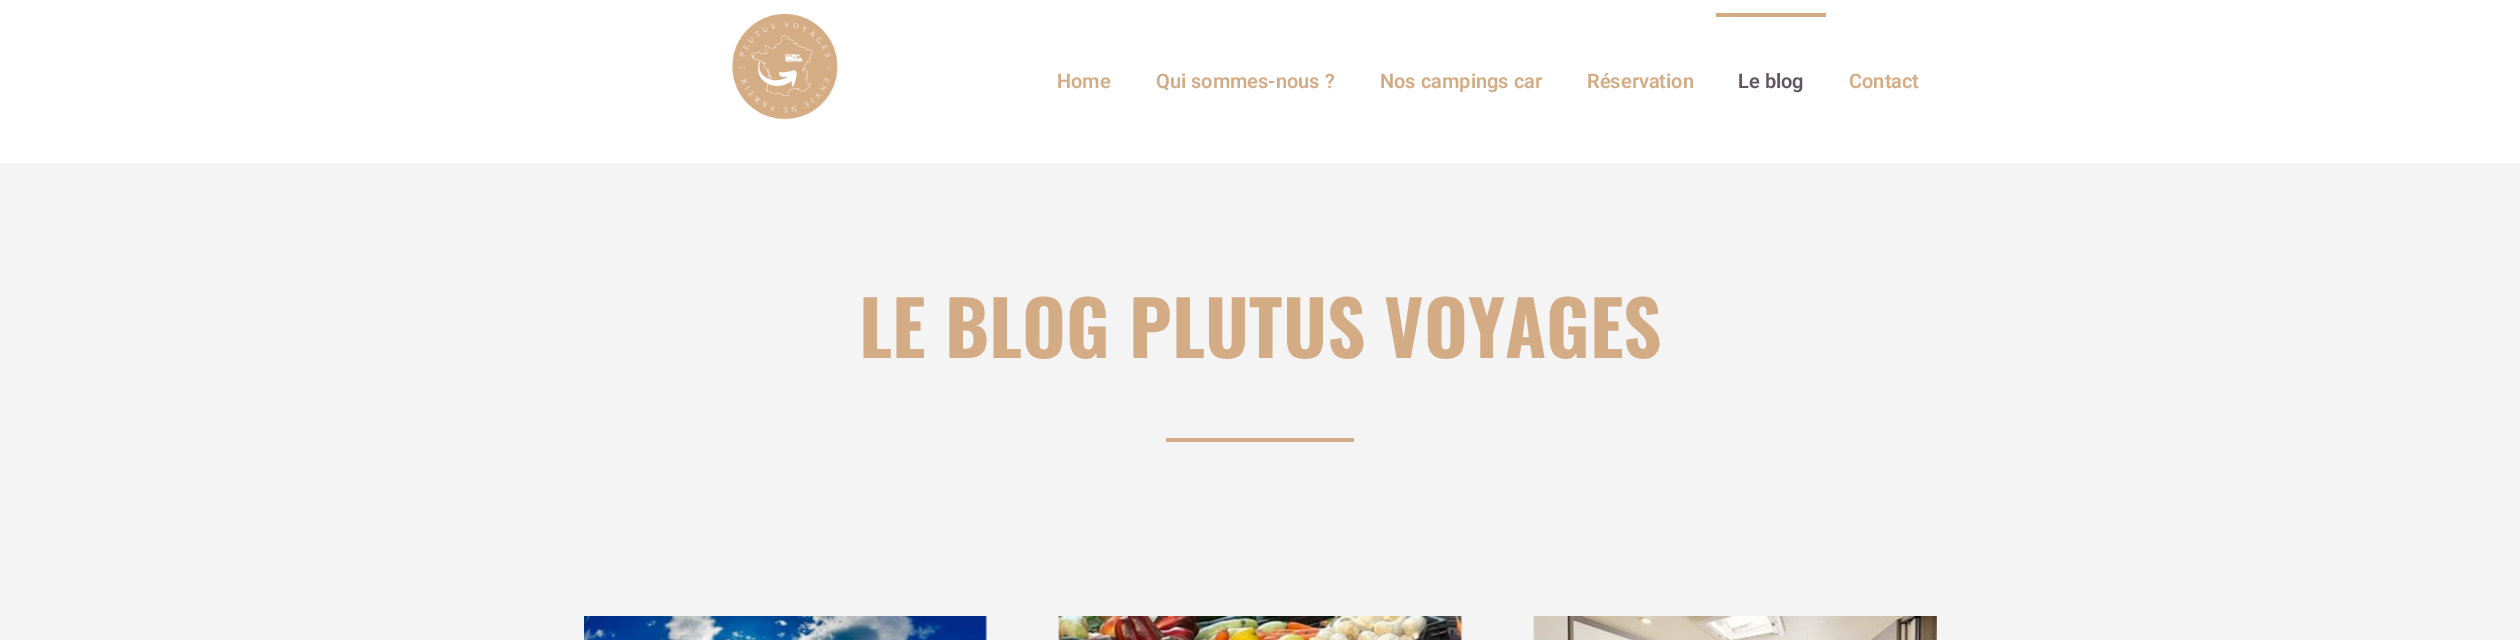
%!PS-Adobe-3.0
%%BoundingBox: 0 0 2520 640
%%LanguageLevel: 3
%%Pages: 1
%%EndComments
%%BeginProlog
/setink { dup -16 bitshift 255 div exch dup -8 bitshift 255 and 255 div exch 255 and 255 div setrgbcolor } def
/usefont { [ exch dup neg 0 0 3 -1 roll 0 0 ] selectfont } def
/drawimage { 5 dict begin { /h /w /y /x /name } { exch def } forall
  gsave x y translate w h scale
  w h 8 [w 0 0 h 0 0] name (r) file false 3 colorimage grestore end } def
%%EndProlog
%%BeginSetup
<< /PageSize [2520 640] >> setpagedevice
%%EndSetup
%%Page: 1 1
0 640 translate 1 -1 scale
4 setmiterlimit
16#FFFFFF setink
0 0 2520 640 rectfill
(img1.raw) 732 14 106 106 drawimage
/Roboto-SemiBold 20 usefont
16#D3AB85 setink
[
    [(Home) 1057 88]
    [(Qui sommes-nous ?) 1156 88]
    [(Nos campings car) 1380 88]
    [(Réservation) 1587 88]
] { aload pop moveto show } forall
1716 13 110 4 rectfill
16#615560 setink
1738 88 moveto (Le blog) show
16#D3AB85 setink
1849 88 moveto (Contact) show
16#F4F4F4 setink
0 163 2520 477 rectfill
/Oswald-Bold 75 usefont
16#D3AB85 setink
859 358 moveto (LE BLOG PLUTUS VOYAGES) show
1166 438 188 4 rectfill
(img2.raw) 584 616 403 24 drawimage
(img3.raw) 1058 616 404 24 drawimage
(img4.raw) 1533 616 404 24 drawimage
showpage
%%EOF
